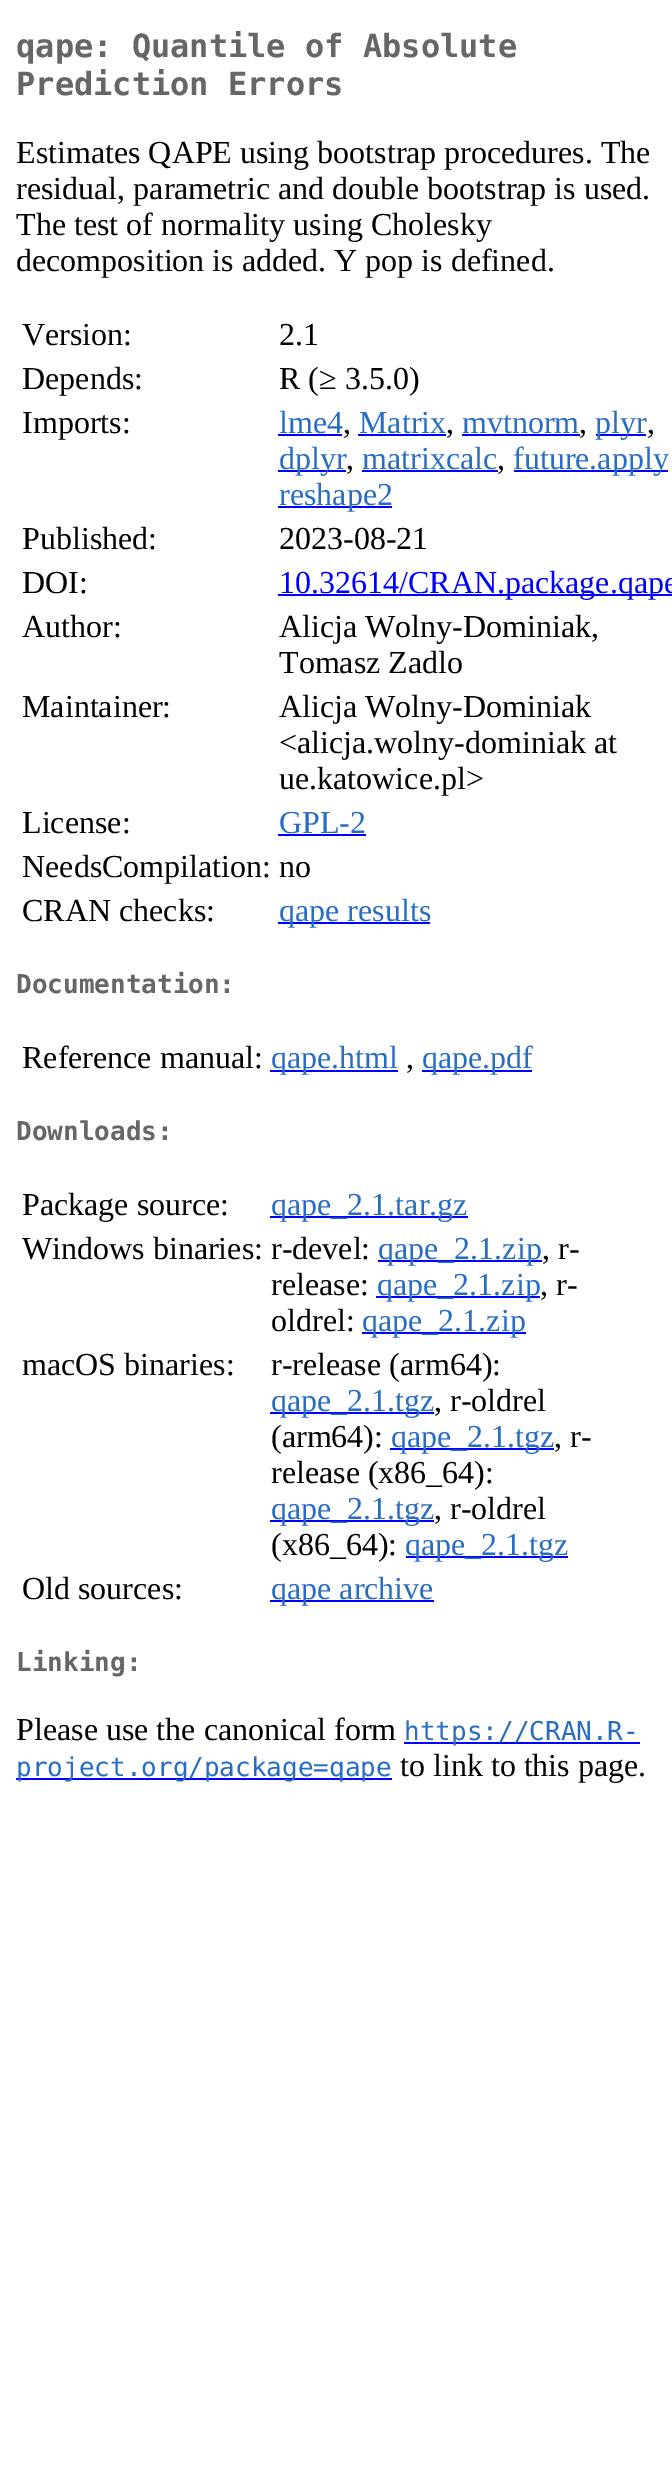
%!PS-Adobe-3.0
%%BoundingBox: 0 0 672 2473
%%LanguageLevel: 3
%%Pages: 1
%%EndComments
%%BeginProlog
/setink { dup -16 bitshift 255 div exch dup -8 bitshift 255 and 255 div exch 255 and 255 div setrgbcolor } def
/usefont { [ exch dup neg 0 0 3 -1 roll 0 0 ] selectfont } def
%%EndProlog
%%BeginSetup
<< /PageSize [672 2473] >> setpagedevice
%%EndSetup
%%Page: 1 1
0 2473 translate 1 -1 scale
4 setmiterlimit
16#FFFFFF setink
0 0 672 2473 rectfill
/DejaVuSansMono-Bold 32 usefont
16#666666 setink
16 57 moveto (qape: Quantile of Absolute) show
16 95 moveto (Prediction Errors) show
/LiberationSerif-Regular 32 usefont
16#000000 setink
[
    [(Estimates QAPE using bootstrap procedures. The) 16 163]
    [(residual, parametric and double bootstrap is used.) 16 199]
    [(The test of normality using Cholesky) 16 235]
    [(decomposition is added. Y pop is defined.) 16 271]
    [(Version:) 22 345]
    [(2.1) 279 345]
    [(Depends:) 22 389]
    [(R \(≥ 3.5.0\)) 279 389]
    [(Imports:) 22 433]
] { aload pop moveto show } forall
16#276DC3 setink
279 433 moveto (lme4) show
16#0000FF setink
278 434 64 2 rectfill
16#000000 setink
343 433 moveto (,) show
16#276DC3 setink
359 433 moveto (Matrix) show
16#0000FF setink
358 434 88 2 rectfill
16#000000 setink
446 433 moveto (,) show
16#276DC3 setink
462 433 moveto (mvtnorm) show
16#0000FF setink
462 434 118 2 rectfill
16#000000 setink
579 433 moveto (,) show
16#0000FF setink
596 434 50 2 rectfill
16#276DC3 setink
595 433 moveto (plyr) show
16#000000 setink
647 433 moveto (,) show
16#0000FF setink
278 470 68 2 rectfill
16#276DC3 setink
279 469 moveto (dplyr) show
16#000000 setink
346 469 moveto (,) show
16#276DC3 setink
362 469 moveto (matrixcalc) show
16#0000FF setink
362 470 136 2 rectfill
16#000000 setink
497 469 moveto (,) show
16#0000FF setink
514 470 154 2 rectfill
16#276DC3 setink
513 469 moveto (future.apply) show
16#0000FF setink
278 506 114 2 rectfill
16#276DC3 setink
279 505 moveto (reshape2) show
16#000000 setink
[
    [(Published:) 22 549]
    [(2023-08-21) 279 549]
    [(DOI:) 22 593]
] { aload pop moveto show } forall
16#0000FF setink
278 594 394 2 rectfill
279 593 moveto (10.32614/CRAN.package.qape) show
16#000000 setink
[
    [(Author:) 22 637]
    [(Alicja Wolny-Dominiak,) 279 637]
    [(Tomasz Zadlo) 279 673]
    [(Maintainer:) 22 717]
    [(Alicja Wolny-Dominiak) 279 717]
    [(<alicja.wolny-dominiak at) 279 753]
    [(ue.katowice.pl>) 279 789]
    [(License:) 22 833]
] { aload pop moveto show } forall
16#276DC3 setink
279 833 moveto (GPL-2) show
16#0000FF setink
278 834 88 2 rectfill
16#000000 setink
22 877 moveto (NeedsCompilation: no) show
22 921 moveto (CRAN checks:) show
16#0000FF setink
278 922 152 2 rectfill
16#276DC3 setink
279 921 moveto (qape results) show
/DejaVuSansMono-Bold 26 usefont
16#666666 setink
16 993 moveto (Documentation:) show
/LiberationSerif-Regular 32 usefont
16#000000 setink
22 1068 moveto (Reference manual:) show
16#0000FF setink
270 1070 128 2 rectfill
16#276DC3 setink
271 1068 moveto (qape.html) show
16#000000 setink
406 1068 moveto (,) show
16#0000FF setink
422 1070 110 2 rectfill
16#276DC3 setink
422 1068 moveto (qape.pdf) show
/DejaVuSansMono-Bold 26 usefont
16#666666 setink
16 1140 moveto (Downloads:) show
/LiberationSerif-Regular 32 usefont
16#000000 setink
22 1215 moveto (Package source:) show
16#0000FF setink
270 1216 198 2 rectfill
16#276DC3 setink
271 1215 moveto (qape_2.1.tar.gz) show
16#000000 setink
22 1259 moveto (Windows binaries: r-devel:) show
16#0000FF setink
378 1260 164 2 rectfill
16#276DC3 setink
378 1259 moveto (qape_2.1.zip) show
16#000000 setink
542 1259 moveto (, r-) show
271 1295 moveto (release:) show
16#0000FF setink
376 1296 164 2 rectfill
16#276DC3 setink
377 1295 moveto (qape_2.1.zip) show
16#000000 setink
540 1295 moveto (, r-) show
271 1331 moveto (oldrel:) show
16#0000FF setink
362 1332 164 2 rectfill
16#276DC3 setink
362 1331 moveto (qape_2.1.zip) show
16#000000 setink
22 1375 moveto (macOS binaries:) show
271 1375 moveto (r-release \(arm64\):) show
16#0000FF setink
270 1412 164 2 rectfill
16#276DC3 setink
271 1411 moveto (qape_2.1.tgz) show
16#000000 setink
434 1411 moveto (, r-oldrel) show
271 1447 moveto (\(arm64\):) show
16#0000FF setink
390 1448 164 2 rectfill
16#276DC3 setink
391 1447 moveto (qape_2.1.tgz) show
16#000000 setink
554 1447 moveto (, r-) show
271 1483 moveto (release \(x86_64\):) show
16#0000FF setink
270 1520 164 2 rectfill
16#276DC3 setink
271 1519 moveto (qape_2.1.tgz) show
16#000000 setink
434 1519 moveto (, r-oldrel) show
271 1555 moveto (\(x86_64\):) show
16#0000FF setink
406 1556 162 2 rectfill
16#276DC3 setink
405 1555 moveto (qape_2.1.tgz) show
16#000000 setink
22 1599 moveto (Old sources:) show
16#0000FF setink
270 1600 164 2 rectfill
16#276DC3 setink
271 1599 moveto (qape archive) show
/DejaVuSansMono-Bold 26 usefont
16#666666 setink
16 1671 moveto (Linking:) show
/LiberationSerif-Regular 32 usefont
16#000000 setink
16 1740 moveto (Please use the canonical form) show
16#0000FF setink
404 1742 236 2 rectfill
/DejaVuSansMono-Regular 26 usefont
16#276DC3 setink
404 1740 moveto (https://CRAN.R-) show
16#0000FF setink
16 1778 376 2 rectfill
16#276DC3 setink
16 1776 moveto (project.org/package=qape) show
/LiberationSerif-Regular 32 usefont
16#000000 setink
400 1776 moveto (to link to this page.) show
showpage
%%EOF
